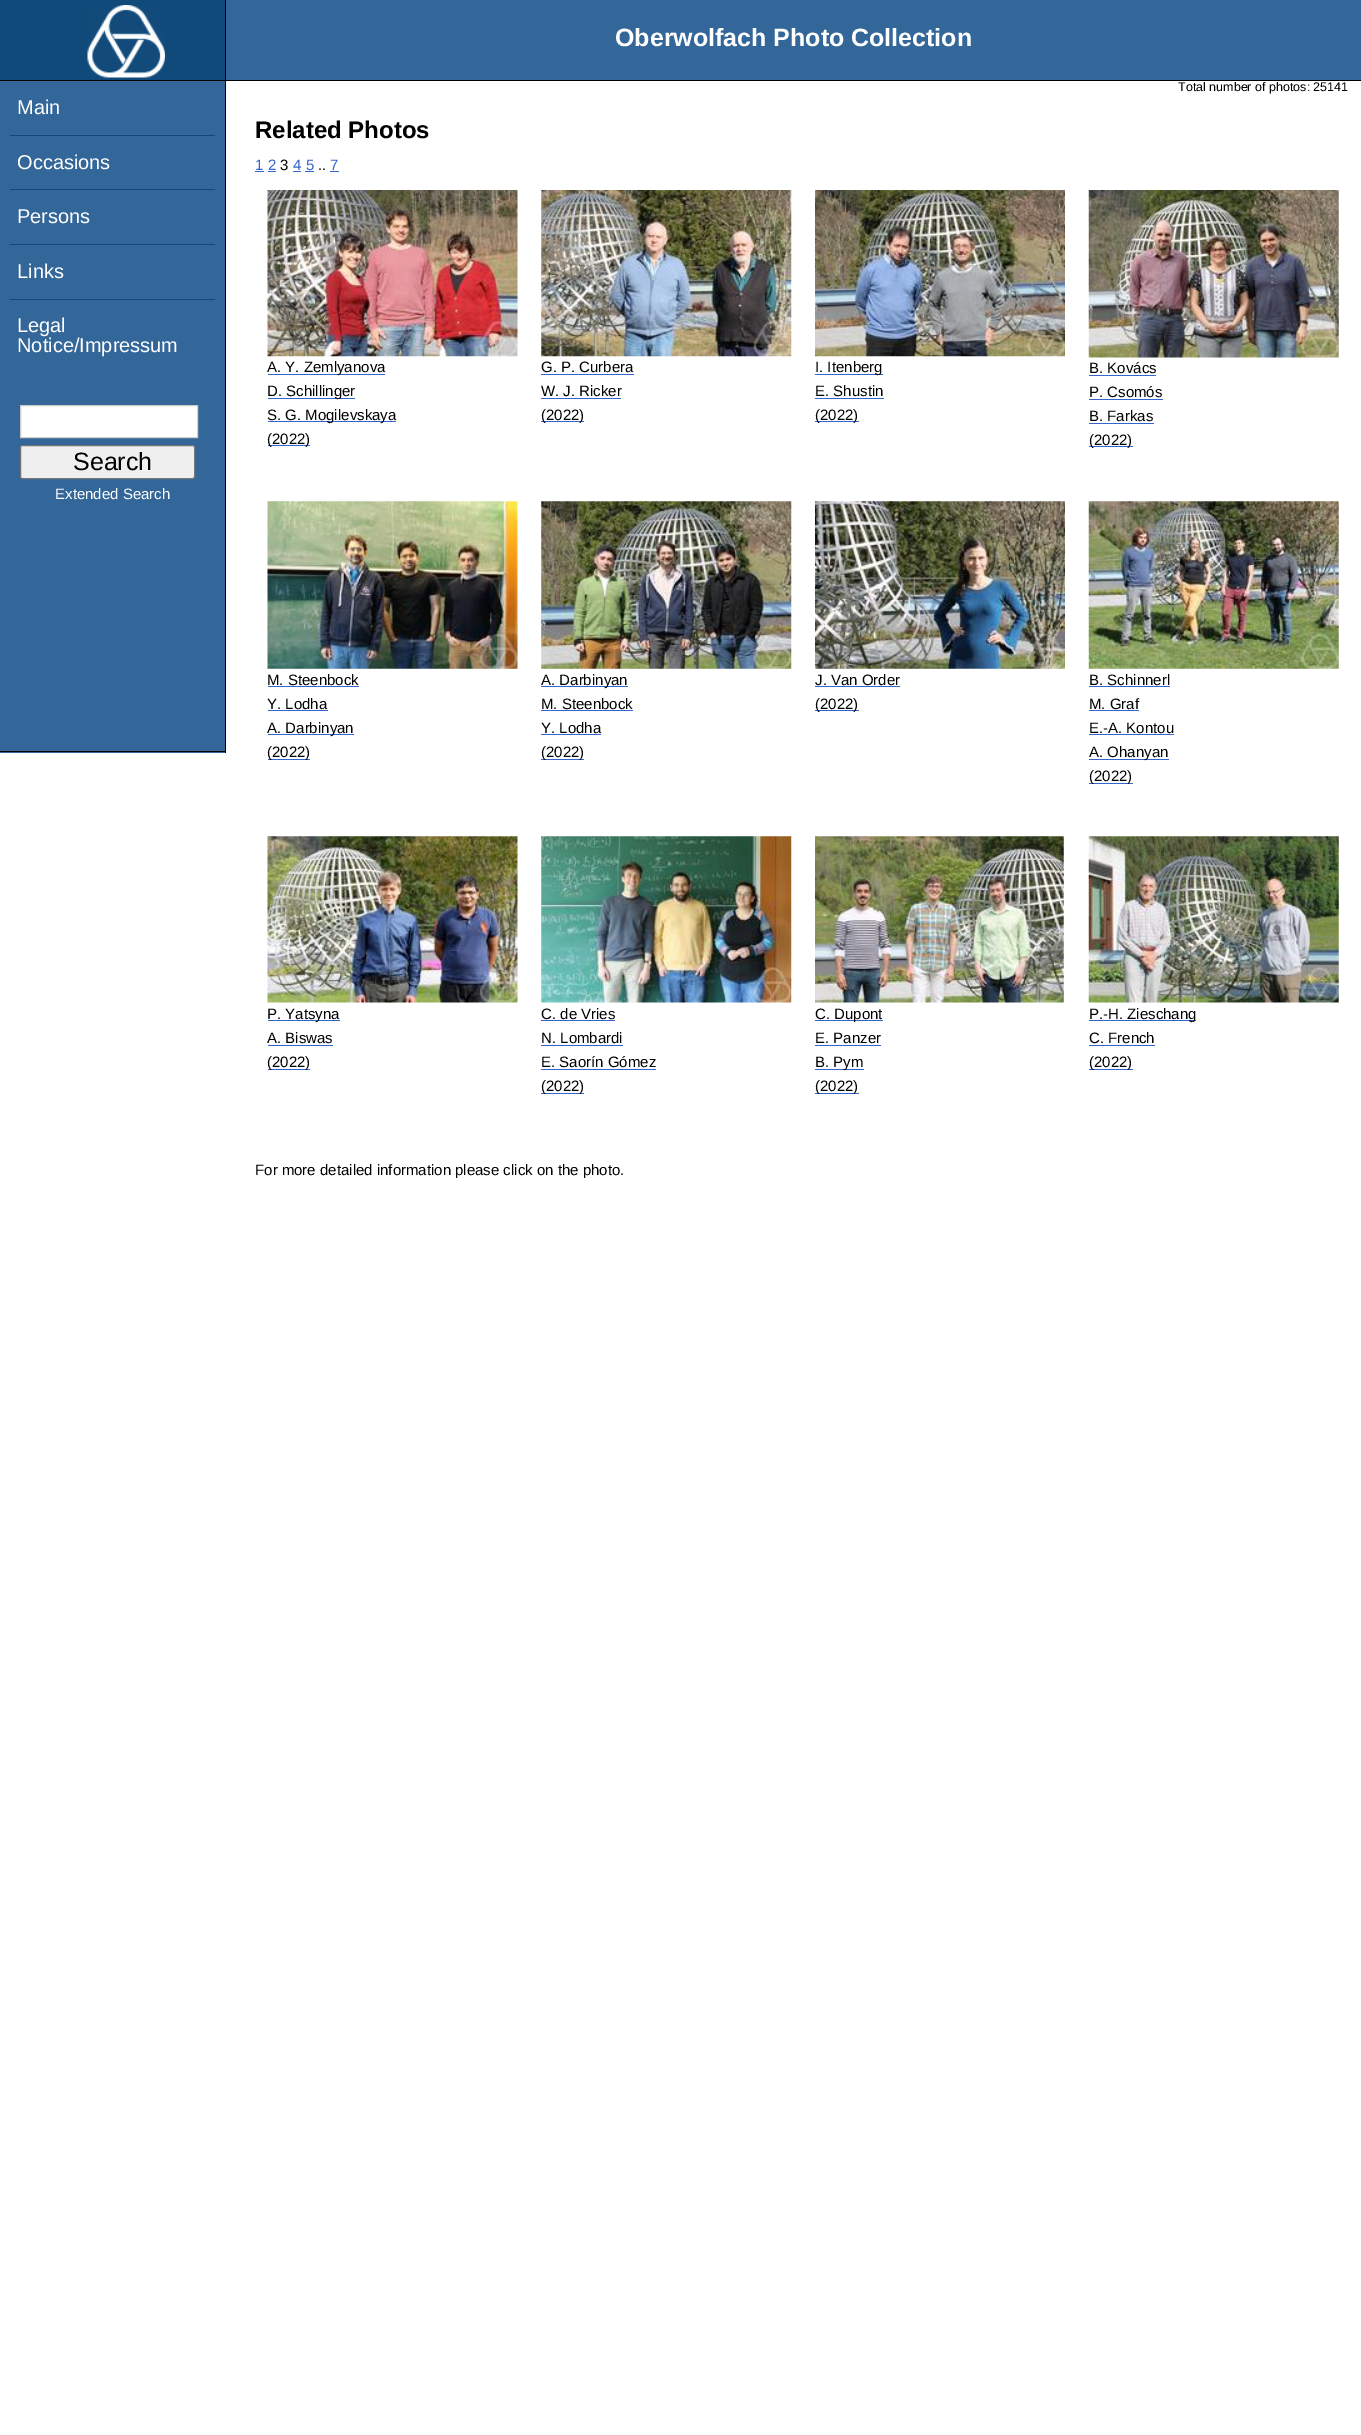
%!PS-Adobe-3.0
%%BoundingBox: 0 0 1361 2435
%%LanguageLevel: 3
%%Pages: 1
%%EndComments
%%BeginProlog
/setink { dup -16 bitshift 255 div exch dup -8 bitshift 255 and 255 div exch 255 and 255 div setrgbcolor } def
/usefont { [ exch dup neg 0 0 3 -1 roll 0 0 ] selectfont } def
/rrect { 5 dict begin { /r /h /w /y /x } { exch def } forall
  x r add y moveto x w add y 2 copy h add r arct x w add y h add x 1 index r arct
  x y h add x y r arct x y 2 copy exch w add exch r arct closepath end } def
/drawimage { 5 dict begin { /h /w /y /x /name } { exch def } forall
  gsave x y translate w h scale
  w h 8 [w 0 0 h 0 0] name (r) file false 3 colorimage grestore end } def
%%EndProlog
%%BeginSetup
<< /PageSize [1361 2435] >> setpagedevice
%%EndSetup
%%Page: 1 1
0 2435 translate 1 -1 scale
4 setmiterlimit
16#FFFFFF setink
0 0 1361 2435 rectfill
[
    [226 0 1135 80 16#336699]
    [0 80 1361 1 16#000000]
    [0 0 225 80 16#104A7B]
    [225 0 1 80 16#000000]
] { aload pop setink rectfill } forall
(img1.raw) 87 5 78 73 drawimage
/LiberationSans-Bold 25 usefont
16#FFFFFF setink
615 46 moveto (Oberwolfach Photo Collection) show
/LiberationSans-Regular 12.5 usefont
16#000000 setink
1178 91 moveto (Total number of photos: 25141) show
[
    [0 81 225 672 16#336699]
    [225 81 1 672 16#000000]
    [0 751 226 1 16#000000]
] { aload pop setink rectfill } forall
/LiberationSans-Regular 20 usefont
16#FFFFFF setink
17 114 moveto (Main) show
16#104A7B setink
10 135 205 1 rectfill
16#FFFFFF setink
17 169 moveto (Occasions) show
16#104A7B setink
10 189 205 1 rectfill
16#FFFFFF setink
17 223 moveto (Persons) show
16#104A7B setink
10 244 205 1 rectfill
16#FFFFFF setink
17 278 moveto (Links) show
16#104A7B setink
10 299 205 1 rectfill
16#FFFFFF setink
17 332 moveto (Legal) show
17 352 moveto (Notice/Impressum) show
20.5 405.5 moveto 197.5 405.5 lineto 197.5 437.5 lineto 20.5 437.5 lineto closepath gsave fill grestore
16#CCCCCC setink
stroke
16#EFEFEF setink
20.5 445.5 174 33 2 rrect gsave fill grestore
16#767676 setink
stroke
/LiberationSans-Regular 25 usefont
16#000000 setink
73 470 moveto (Search) show
/LiberationSans-Regular 15 usefont
16#FFFFFF setink
55 499 moveto (Extended Search) show
/LiberationSans-Bold 24 usefont
16#000000 setink
255 138 moveto (Related Photos) show
/LiberationSans-Regular 15 usefont
16#3366CC setink
255 170 moveto (1 2) show
255 171 9 1 rectfill
16#000000 setink
280 170 moveto (3) show
16#3366CC setink
293 170 moveto (4 5) show
293 171 8 1 rectfill
16#000000 setink
318 170 moveto (..) show
16#3366CC setink
330 170 moveto (7) show
[
    [330 171 9 1 16#3366CC]
    [268 171 8 1 16#3366CC]
    [305 171 9 1 16#3366CC]
] { aload pop setink rectfill } forall
(img2.raw) 267 190 251 167 drawimage
268 374 117 1 rectfill
16#000000 setink
267 372 moveto (A. Y. Zemlyanova) show
16#3366CC setink
268 398 87 1 rectfill
16#000000 setink
267 396 moveto (D. Schillinger) show
16#3366CC setink
268 421 128 1 rectfill
16#000000 setink
267 420 moveto (S. G. Mogilevskaya) show
16#3366CC setink
268 445 42 1 rectfill
16#000000 setink
267 444 moveto (\(2022\)) show
(img3.raw) 541 190 251 167 drawimage
541 372 moveto (G. P. Curbera) show
16#3366CC setink
541 374 93 1 rectfill
16#000000 setink
541 396 moveto (W. J. Ricker) show
16#3366CC setink
541 398 80 1 rectfill
541 421 43 1 rectfill
16#000000 setink
541 420 moveto (\(2022\)) show
(img4.raw) 815 190 250 167 drawimage
16#3366CC setink
815 374 68 1 rectfill
16#000000 setink
815 372 moveto (I. Itenberg) show
815 396 moveto (E. Shustin) show
16#3366CC setink
815 398 69 1 rectfill
815 421 44 1 rectfill
16#000000 setink
815 420 moveto (\(2022\)) show
(img5.raw) 1088 190 251 168 drawimage
1089 373 moveto (B. Kovács) show
16#3366CC setink
1089 375 67 1 rectfill
16#000000 setink
1089 397 moveto (P. Csomós) show
16#3366CC setink
1089 399 74 1 rectfill
16#000000 setink
1089 421 moveto (B. Farkas) show
16#3366CC setink
1089 423 65 1 rectfill
1089 446 44 1 rectfill
16#000000 setink
1089 445 moveto (\(2022\)) show
(img6.raw) 267 501 251 168 drawimage
267 685 moveto (M. Steenbock) show
16#3366CC setink
268 686 91 1 rectfill
16#000000 setink
267 709 moveto (Y. Lodha) show
16#3366CC setink
268 710 60 1 rectfill
268 734 86 1 rectfill
16#000000 setink
267 733 moveto (A. Darbinyan) show
16#3366CC setink
268 759 42 1 rectfill
16#000000 setink
267 757 moveto (\(2022\)) show
(img7.raw) 541 501 251 168 drawimage
16#3366CC setink
541 686 87 1 rectfill
16#000000 setink
541 685 moveto (A. Darbinyan) show
541 709 moveto (M. Steenbock) show
16#3366CC setink
541 710 92 1 rectfill
16#000000 setink
541 733 moveto (Y. Lodha) show
16#3366CC setink
541 734 60 1 rectfill
541 759 43 1 rectfill
16#000000 setink
541 757 moveto (\(2022\)) show
(img8.raw) 815 501 250 168 drawimage
815 685 moveto (J. Van Order) show
16#3366CC setink
815 686 85 1 rectfill
815 710 44 1 rectfill
16#000000 setink
815 709 moveto (\(2022\)) show
(img9.raw) 1088 501 251 168 drawimage
1089 685 moveto (B. Schinnerl) show
16#3366CC setink
1089 686 81 1 rectfill
16#000000 setink
1089 709 moveto (M. Graf) show
16#3366CC setink
1089 710 50 1 rectfill
16#000000 setink
1089 733 moveto (E.-A. Kontou) show
16#3366CC setink
1089 734 85 1 rectfill
1089 759 80 1 rectfill
16#000000 setink
1089 757 moveto (A. Ohanyan) show
16#3366CC setink
1089 783 44 1 rectfill
16#000000 setink
1089 781 moveto (\(2022\)) show
(img10.raw) 267 836 251 167 drawimage
16#3366CC setink
268 1020 72 1 rectfill
16#000000 setink
267 1019 moveto (P. Yatsyna) show
267 1043 moveto (A. Biswas) show
16#3366CC setink
268 1045 65 1 rectfill
268 1069 42 1 rectfill
16#000000 setink
267 1067 moveto (\(2022\)) show
(img11.raw) 541 836 251 167 drawimage
541 1019 moveto (C. de Vries) show
16#3366CC setink
541 1020 74 1 rectfill
16#000000 setink
541 1043 moveto (N. Lombardi) show
16#3366CC setink
541 1045 82 1 rectfill
16#000000 setink
541 1067 moveto (E. Saorín Gómez) show
16#3366CC setink
541 1069 115 1 rectfill
541 1093 43 1 rectfill
16#000000 setink
541 1091 moveto (\(2022\)) show
(img12.raw) 815 836 249 167 drawimage
16#3366CC setink
815 1020 68 1 rectfill
16#000000 setink
815 1019 moveto (C. Dupont) show
815 1043 moveto (E. Panzer) show
16#3366CC setink
815 1045 66 1 rectfill
815 1069 49 1 rectfill
16#000000 setink
815 1067 moveto (B. Pym) show
16#3366CC setink
815 1093 44 1 rectfill
16#000000 setink
815 1091 moveto (\(2022\)) show
(img13.raw) 1088 836 251 167 drawimage
16#3366CC setink
1089 1020 107 1 rectfill
16#000000 setink
1089 1019 moveto (P.-H. Zieschang) show
1089 1043 moveto (C. French) show
16#3366CC setink
1089 1045 66 1 rectfill
1089 1069 44 1 rectfill
16#000000 setink
1089 1067 moveto (\(2022\)) show
255 1175 moveto (For more detailed information please click on the photo.) show
showpage
%%EOF
